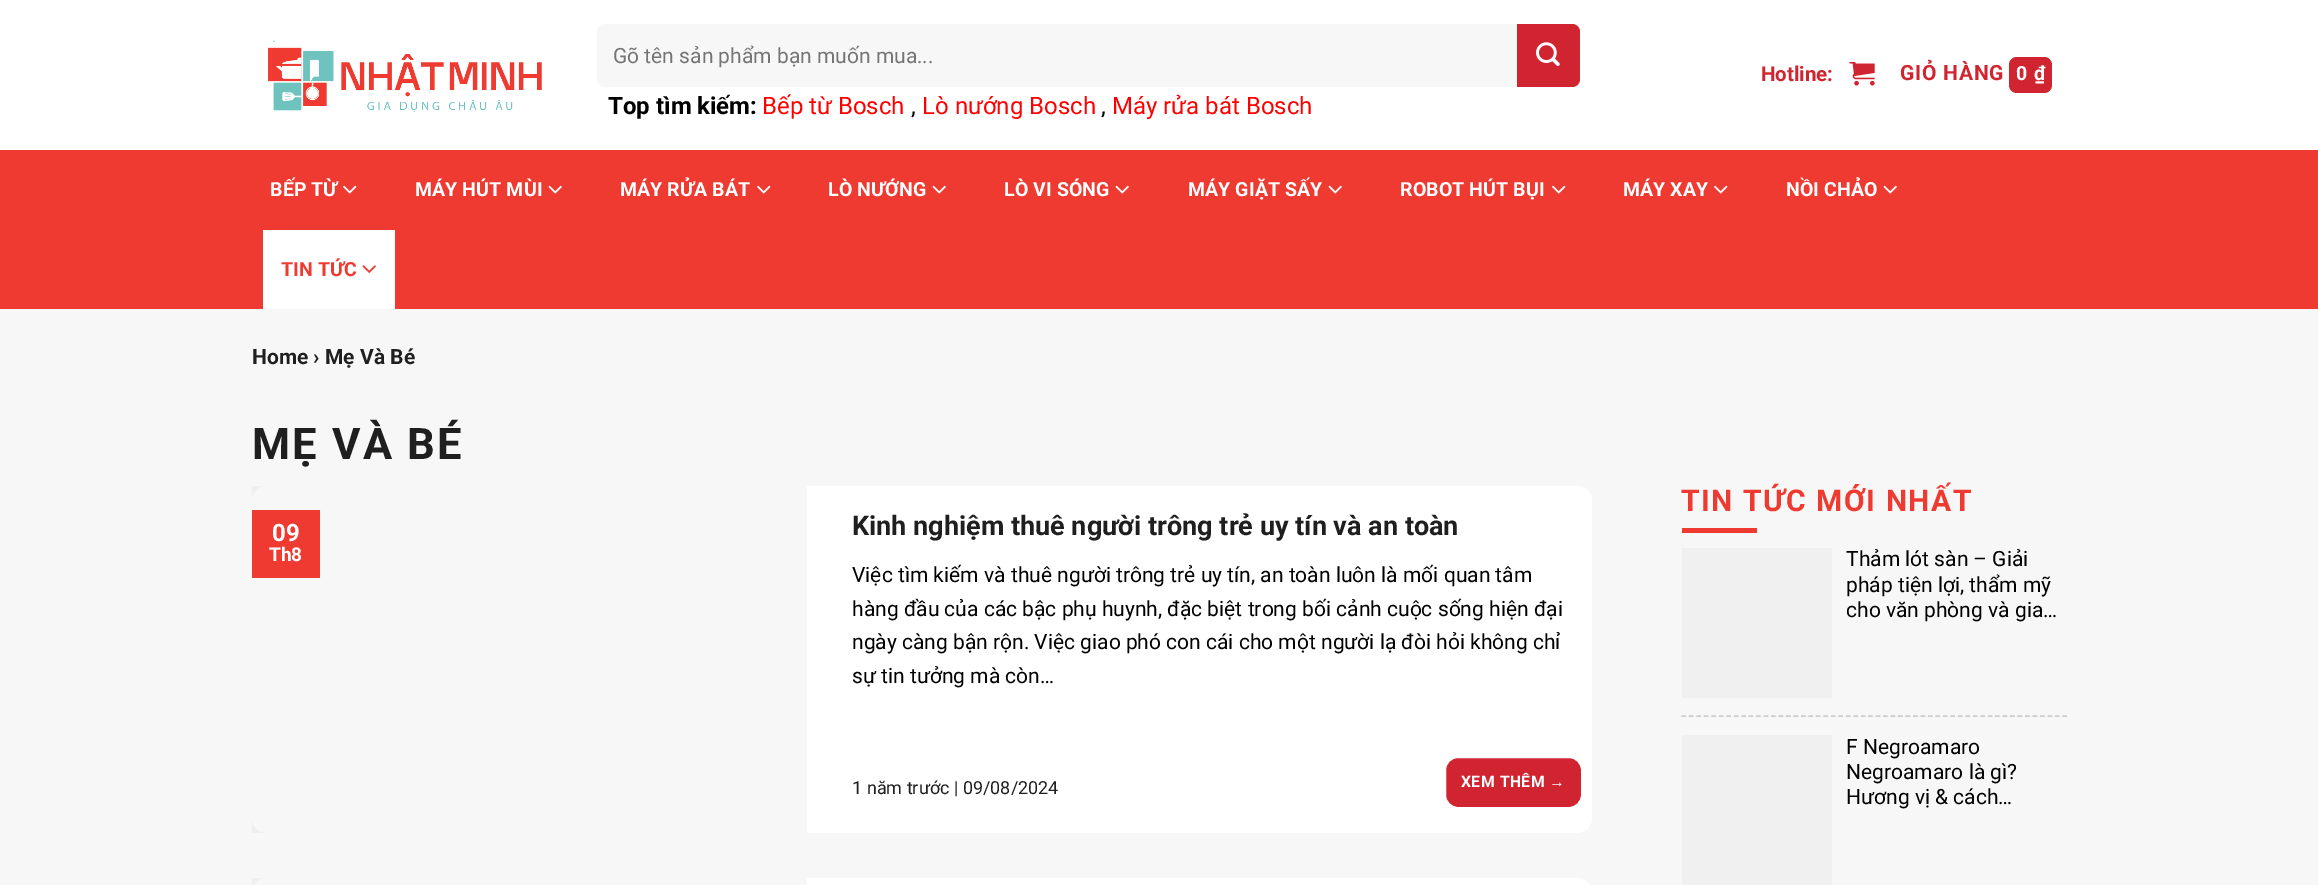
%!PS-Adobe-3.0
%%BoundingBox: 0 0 2318 885
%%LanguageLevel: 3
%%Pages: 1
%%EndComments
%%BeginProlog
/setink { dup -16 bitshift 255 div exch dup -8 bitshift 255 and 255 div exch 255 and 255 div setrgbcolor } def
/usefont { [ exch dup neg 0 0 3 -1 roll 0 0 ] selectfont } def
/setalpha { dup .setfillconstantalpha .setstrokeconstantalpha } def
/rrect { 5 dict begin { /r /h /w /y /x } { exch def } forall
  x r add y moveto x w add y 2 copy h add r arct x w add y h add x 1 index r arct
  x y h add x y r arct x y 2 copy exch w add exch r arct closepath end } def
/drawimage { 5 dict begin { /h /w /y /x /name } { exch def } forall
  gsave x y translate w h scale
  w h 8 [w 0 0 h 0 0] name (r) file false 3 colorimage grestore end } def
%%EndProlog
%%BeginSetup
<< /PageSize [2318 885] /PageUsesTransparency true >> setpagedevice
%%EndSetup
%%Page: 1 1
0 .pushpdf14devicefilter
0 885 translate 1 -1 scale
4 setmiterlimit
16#F7F7F7 setink
0 0 2318 885 rectfill
16#FFFFFF setink
0 0 2318 150 rectfill
(img1.raw) 268 40 274 73 drawimage
16#F7F7F7 setink
597 24 974 63 8 rrect fill
/Roboto-Regular 21 usefont
16#757575 setink
613 63 moveto (Gõ tên sản phẩm bạn muốn mua...) show
16#D02530 setink
1517 24 moveto 1572 24 lineto 1576.5 24 1580 27.5 1580 32 curveto 1580 79 lineto 1580 83.5 1576.5 87 1572 87 curveto 1517 87 lineto closepath fill
(img2.raw) 1536 42 24 24 drawimage
/Roboto-Bold 24 usefont
16#000000 setink
608 114 moveto (Top tìm kiếm:) show
/Roboto-Regular 24 usefont
16#FF0000 setink
762 114 moveto (Bếp từ Bosch) show
16#000000 setink
911 114 moveto (,) show
16#FF0000 setink
922 114 moveto (Lò nướng Bosch) show
16#000000 setink
1101 114 moveto (,) show
16#FF0000 setink
1112 114 moveto (Máy rửa bát Bosch) show
/Roboto-Bold 20.5 usefont
16#D02530 setink
1761 81 moveto (Hotline:) show
(img3.raw) 1849 61 26 25 drawimage
/Roboto-Bold 21 usefont
1900 80 moveto 0.75 0 (GIỎ HÀNG) ashow
2009 57 43 36 8 rrect fill
/Roboto-Bold 19.5 usefont
16#FFFFFF setink
2016 80 moveto 0.75 0 (0 ₫) ashow
16#EF3A31 setink
0 150 2318 159 rectfill
16#FFFFFF setink
270 196 moveto 0.1 0 (BẾP TỪ) ashow
(img4.raw) 343 185 14 9 drawimage
415 196 moveto 0.1 0 (MÁY HÚT MÙI) ashow
(img5.raw) 548 185 14 9 drawimage
620 196 moveto 0.1 0 (MÁY RỬA BÁT) ashow
(img4.raw) 757 185 14 9 drawimage
828 196 moveto 0.1 0 (LÒ NƯỚNG) ashow
(img5.raw) 932 185 14 9 drawimage
1004 196 moveto 0.1 0 (LÒ VI SÓNG) ashow
(img5.raw) 1115 185 14 9 drawimage
1188 196 moveto 0.1 0 (MÁY GIẶT SẤY) ashow
(img5.raw) 1328 185 14 9 drawimage
1400 196 moveto 0.1 0 (ROBOT HÚT BỤI) ashow
(img4.raw) 1552 185 14 9 drawimage
1623 196 moveto 0.1 0 (MÁY XAY) ashow
(img4.raw) 1714 185 14 9 drawimage
1786 196 moveto 0.1 0 (NỒI CHẢO) ashow
(img5.raw) 1883 185 14 9 drawimage
263 230 132 79 rectfill
16#EF3A31 setink
281 276 moveto 0.1 0 (TIN TỨC) ashow
(img6.raw) 362 265 14 8 drawimage
/Roboto-Bold 21 usefont
16#1F1F1F setink
252 364 moveto (Home › Mẹ Và Bé) show
/Roboto-Bold 43.5 usefont
252 459 moveto 2.25 0 (MẸ VÀ BÉ) ashow
16#FFFFFF setink
252 486 1340 347 15 rrect fill
0.03 setalpha
16#000000 setink
252 486 555 347 rectfill
1 setalpha
16#EF3A31 setink
252 510 68 68 rectfill
/Roboto-Bold 24 usefont
16#FFFFFF setink
272 541 moveto (09) show
/Roboto-Bold 19 usefont
269 561 moveto (Th8) show
/Roboto-Bold 27 usefont
16#1F1F1F setink
852 535 moveto (Kinh nghiệm thuê người trông trẻ uy tín và an toàn) show
/Roboto-Regular 21 usefont
16#000000 setink
[
    [(Việc tìm kiếm và thuê người trông trẻ uy tín, an toàn luôn là mối quan tâm) 852 582]
    [(hàng đầu của các bậc phụ huynh, đặc biệt trong bối cảnh cuộc sống hiện đại) 852 616]
    [(ngày càng bận rộn. Việc giao phó con cái cho một người lạ đòi hỏi không chỉ) 852 649]
    [(sự tin tưởng mà còn…) 852 683]
] { aload pop moveto show } forall
/Roboto-Regular 18 usefont
16#1F1F1F setink
852 794 moveto (1 năm trước | 09/08/2024) show
16#D02530 setink
1444.5 756.5 138 52 13.5 rrect gsave fill grestore
16#FFFFFF setink
3 setlinewidth
stroke
/Roboto-Bold 15.75 usefont
1461 787 moveto 0.5 0 (XEM THÊM) ashow
/LiberationSans-Bold 15.75 usefont
1549 787 moveto 0.5 0 (→) ashow
252 878 1340 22 15 rrect fill
0.03 setalpha
16#000000 setink
252 878 555 7 rectfill
/Roboto-Bold 30 usefont
1 setalpha
16#EF3A31 setink
1681 511 moveto 1.5 0 (TIN TỨC MỚI NHẤT) ashow
1682 528 75 5 rectfill
16#CCCCCC setink
1.5 setlinewidth
[4.5 2.97] 0 setdash
1681.5 716 moveto 2067 716 lineto stroke
16#F0F0F0 setink
1682 548 150 150 rectfill
/Roboto-Regular 21 usefont
16#000000 setink
1846 566 moveto (Thảm lót sàn – Giải) show
1846 592 moveto (pháp tiện lợi, thẩm mỹ) show
gsave
1847 548 220 75 rectclip
1846 617 moveto (cho văn phòng và gia…) show
grestore
16#F0F0F0 setink
1682 735 150 150 rectfill
16#000000 setink
[
    [(F Negroamaro) 1846 754]
    [(Negroamaro là gì?) 1846 779]
    [(Hương vị & cách…) 1846 804]
] { aload pop moveto show } forall
.poppdf14devicefilter showpage
%%EOF
